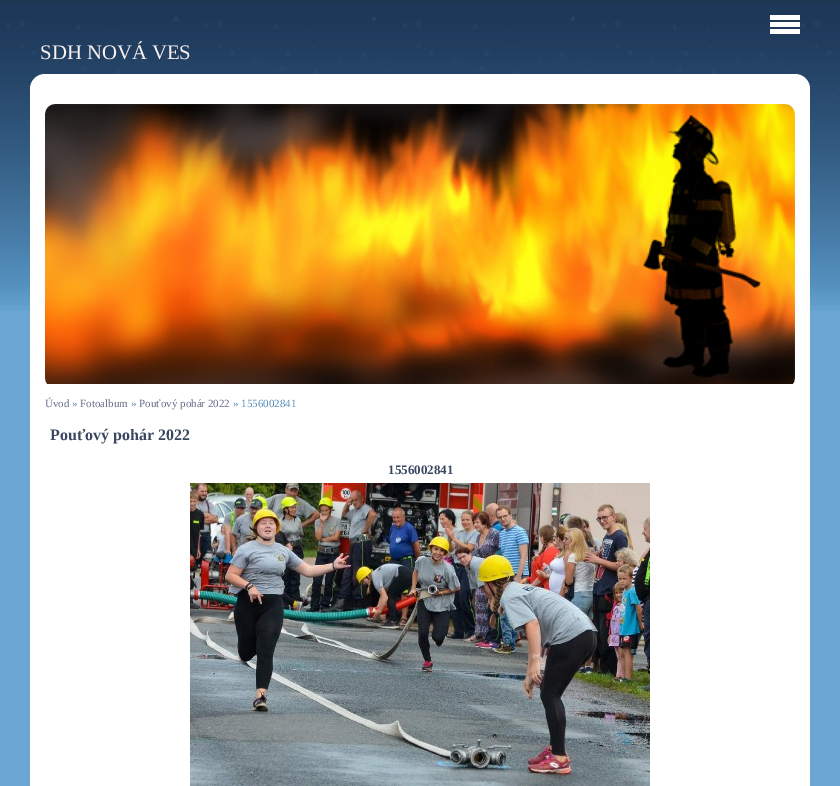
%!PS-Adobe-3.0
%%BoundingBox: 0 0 840 786
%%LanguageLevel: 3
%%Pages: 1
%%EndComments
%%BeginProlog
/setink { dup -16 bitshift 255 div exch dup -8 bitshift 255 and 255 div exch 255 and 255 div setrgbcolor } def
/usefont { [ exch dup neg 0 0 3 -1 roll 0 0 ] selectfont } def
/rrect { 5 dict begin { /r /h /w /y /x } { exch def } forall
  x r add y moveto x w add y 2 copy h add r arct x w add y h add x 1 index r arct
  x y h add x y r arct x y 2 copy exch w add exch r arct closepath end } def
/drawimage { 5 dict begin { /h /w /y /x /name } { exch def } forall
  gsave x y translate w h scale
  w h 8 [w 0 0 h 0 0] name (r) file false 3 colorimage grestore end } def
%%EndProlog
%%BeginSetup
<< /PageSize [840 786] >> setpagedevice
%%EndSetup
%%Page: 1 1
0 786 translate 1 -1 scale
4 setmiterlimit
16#6BA6D4 setink
0 0 840 786 rectfill
(img1.raw) 0 0 840 311 drawimage
[
    [770 15 30 5 16#FFFFFF]
    [770 22 30 5 16#FFFFFF]
    [770 29 30 5 16#FFFFFF]
] { aload pop setink rectfill } forall
/LiberationSerif-Regular 20.75 usefont
16#F8F0F0 setink
40 59 moveto (SDH NOVÁ VES) show
16#FFFFFF setink
30 74 780 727 15 rrect fill
(img2.raw) 45 104 750 280 drawimage
/LiberationSerif-Regular 11 usefont
16#69708A setink
45 407 moveto (Úvod) show
16#578DBB setink
72 407 moveto (») show
16#69708A setink
80 407 moveto (Fotoalbum) show
16#578DBB setink
131 407 moveto (») show
16#69708A setink
139 407 moveto (Pouťový pohár 2022) show
16#578DBB setink
233 407 moveto (» 1556002841) show
/LiberationSerif-Bold 16 usefont
16#39475F setink
50 440 moveto (Pouťový pohár 2022) show
/LiberationSerif-Bold 13 usefont
388 474 moveto (1556002841) show
(img3.raw) 190 483 460 303 drawimage
showpage
%%EOF
